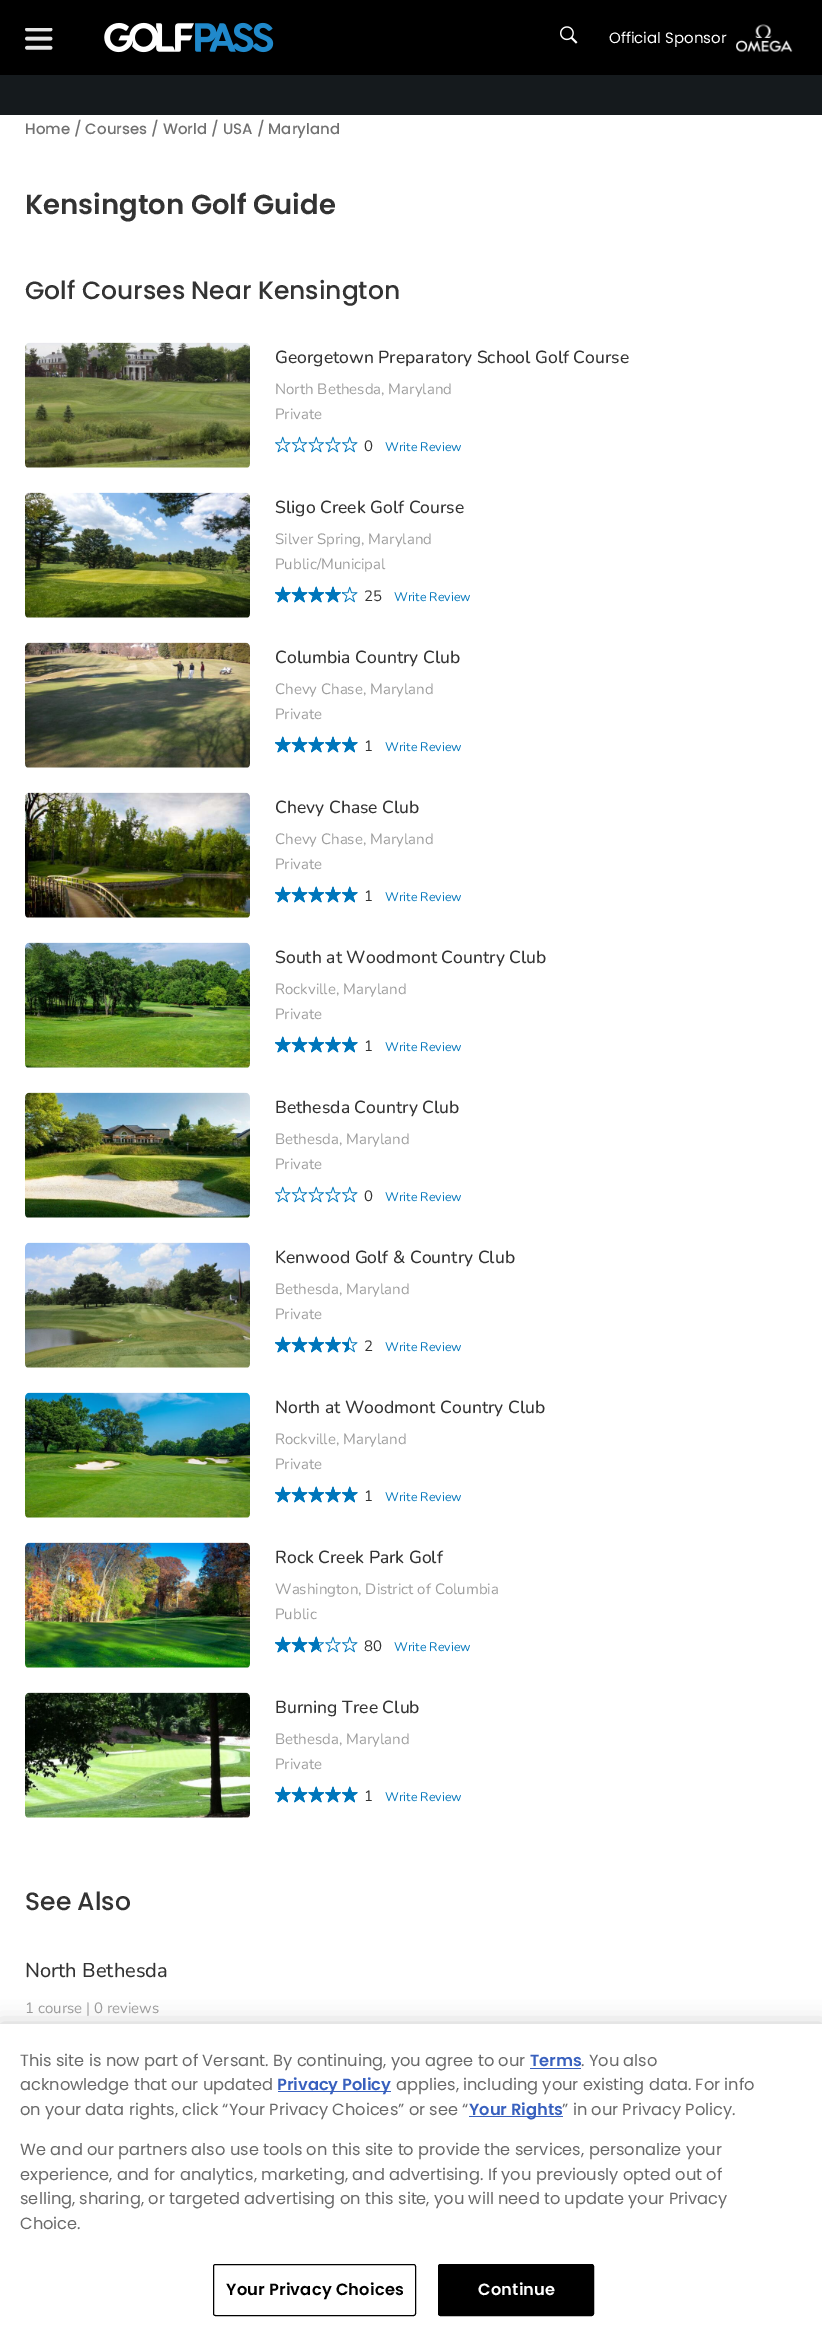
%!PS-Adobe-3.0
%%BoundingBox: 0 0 822 2336
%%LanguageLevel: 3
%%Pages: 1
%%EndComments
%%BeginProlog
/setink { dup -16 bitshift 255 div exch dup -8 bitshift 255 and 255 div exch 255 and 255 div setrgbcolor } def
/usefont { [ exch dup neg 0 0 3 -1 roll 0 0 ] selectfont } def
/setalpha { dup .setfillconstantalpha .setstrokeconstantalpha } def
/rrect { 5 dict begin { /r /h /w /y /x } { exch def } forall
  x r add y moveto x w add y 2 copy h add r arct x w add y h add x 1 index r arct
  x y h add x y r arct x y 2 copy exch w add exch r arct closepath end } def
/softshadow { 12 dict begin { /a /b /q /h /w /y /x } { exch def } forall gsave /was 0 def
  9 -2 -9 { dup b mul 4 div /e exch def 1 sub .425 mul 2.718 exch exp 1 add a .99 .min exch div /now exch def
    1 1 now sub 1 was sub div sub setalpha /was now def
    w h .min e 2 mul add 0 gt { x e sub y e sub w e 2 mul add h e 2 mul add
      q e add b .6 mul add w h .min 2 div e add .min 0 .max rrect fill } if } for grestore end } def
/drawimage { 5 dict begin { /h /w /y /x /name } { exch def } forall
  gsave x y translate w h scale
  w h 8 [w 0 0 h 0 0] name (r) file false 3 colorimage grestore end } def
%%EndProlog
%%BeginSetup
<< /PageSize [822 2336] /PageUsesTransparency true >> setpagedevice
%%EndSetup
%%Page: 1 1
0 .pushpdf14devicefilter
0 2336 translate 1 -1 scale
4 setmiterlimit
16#151A1D setink
0 0 822 2336 rectfill
16#000000 setink
0 0 822 75 rectfill
(img1.raw) 25 28 28 22 drawimage
(img2.raw) 104 22 170 31 drawimage
(img3.raw) 560 26 18 18 drawimage
/Poppins-Regular 15 usefont
16#FFFFFF setink
609 43 moveto (Official Sponsor) show
(img4.raw) 736 24 57 28 drawimage
0 115 822 1909 rectfill
/Poppins-Medium 15 usefont
16#717171 setink
25 134 moveto (Home / Courses / World / USA / Maryland) show
/Poppins-SemiBold 27.5 usefont
16#333333 setink
25 214 moveto (Kensington Golf Guide) show
/Poppins-Medium 25 usefont
25 299 moveto (Golf Courses Near Kensington) show
(img5.raw) 25 342 225 126 drawimage
/Nunito-Medium 17.5 usefont
275 363 moveto (Georgetown Preparatory School Golf Course) show
/Nunito-Regular 15 usefont
16#9D9D9D setink
275 394 moveto (North Bethesda, Maryland) show
275 419 moveto (Private) show
(img6.raw) 275 436 83 17 drawimage
16#333333 setink
364 451 moveto (0) show
/Nunito-Regular 12.5 usefont
16#0076BB setink
385 451 moveto (Write Review) show
(img7.raw) 25 492 225 126 drawimage
/Nunito-Medium 17.5 usefont
16#333333 setink
275 513 moveto (Sligo Creek Golf Course) show
/Nunito-Regular 15 usefont
16#9D9D9D setink
275 544 moveto (Silver Spring, Maryland) show
275 569 moveto (Public/Municipal) show
(img6.raw) 275 586 83 17 drawimage
(img8.raw) 275 586 68 17 drawimage
16#333333 setink
364 601 moveto (25) show
/Nunito-Regular 12.5 usefont
16#0076BB setink
394 601 moveto (Write Review) show
(img9.raw) 25 642 225 126 drawimage
/Nunito-Medium 17.5 usefont
16#333333 setink
275 663 moveto (Columbia Country Club) show
/Nunito-Regular 15 usefont
16#9D9D9D setink
275 694 moveto (Chevy Chase, Maryland) show
275 719 moveto (Private) show
(img6.raw) 275 736 83 17 drawimage
(img10.raw) 275 736 83 17 drawimage
16#333333 setink
364 751 moveto (1) show
/Nunito-Regular 12.5 usefont
16#0076BB setink
385 751 moveto (Write Review) show
(img11.raw) 25 792 225 126 drawimage
/Nunito-Medium 17.5 usefont
16#333333 setink
275 813 moveto (Chevy Chase Club) show
/Nunito-Regular 15 usefont
16#9D9D9D setink
275 844 moveto (Chevy Chase, Maryland) show
275 869 moveto (Private) show
(img6.raw) 275 886 83 17 drawimage
(img10.raw) 275 886 83 17 drawimage
16#333333 setink
364 901 moveto (1) show
/Nunito-Regular 12.5 usefont
16#0076BB setink
385 901 moveto (Write Review) show
(img12.raw) 25 942 225 126 drawimage
/Nunito-Medium 17.5 usefont
16#333333 setink
275 963 moveto (South at Woodmont Country Club) show
/Nunito-Regular 15 usefont
16#9D9D9D setink
275 994 moveto (Rockville, Maryland) show
275 1019 moveto (Private) show
(img6.raw) 275 1036 83 17 drawimage
(img10.raw) 275 1036 83 17 drawimage
16#333333 setink
364 1051 moveto (1) show
/Nunito-Regular 12.5 usefont
16#0076BB setink
385 1051 moveto (Write Review) show
(img13.raw) 25 1092 225 126 drawimage
/Nunito-Medium 17.5 usefont
16#333333 setink
275 1113 moveto (Bethesda Country Club) show
/Nunito-Regular 15 usefont
16#9D9D9D setink
275 1144 moveto (Bethesda, Maryland) show
275 1169 moveto (Private) show
(img6.raw) 275 1186 83 17 drawimage
16#333333 setink
364 1201 moveto (0) show
/Nunito-Regular 12.5 usefont
16#0076BB setink
385 1201 moveto (Write Review) show
(img14.raw) 25 1242 225 126 drawimage
/Nunito-Medium 17.5 usefont
16#333333 setink
275 1263 moveto (Kenwood Golf & Country Club) show
/Nunito-Regular 15 usefont
16#9D9D9D setink
275 1294 moveto (Bethesda, Maryland) show
275 1319 moveto (Private) show
(img6.raw) 275 1336 83 17 drawimage
(img15.raw) 275 1336 74 17 drawimage
16#333333 setink
364 1351 moveto (2) show
/Nunito-Regular 12.5 usefont
16#0076BB setink
385 1351 moveto (Write Review) show
(img16.raw) 25 1392 225 126 drawimage
/Nunito-Medium 17.5 usefont
16#333333 setink
275 1413 moveto (North at Woodmont Country Club) show
/Nunito-Regular 15 usefont
16#9D9D9D setink
275 1444 moveto (Rockville, Maryland) show
275 1469 moveto (Private) show
(img6.raw) 275 1486 83 17 drawimage
(img10.raw) 275 1486 83 17 drawimage
16#333333 setink
364 1501 moveto (1) show
/Nunito-Regular 12.5 usefont
16#0076BB setink
385 1501 moveto (Write Review) show
(img17.raw) 25 1542 225 126 drawimage
/Nunito-Medium 17.5 usefont
16#333333 setink
275 1563 moveto (Rock Creek Park Golf) show
/Nunito-Regular 15 usefont
16#9D9D9D setink
275 1594 moveto (Washington, District of Columbia) show
275 1619 moveto (Public) show
(img6.raw) 275 1636 83 17 drawimage
(img18.raw) 275 1636 44 17 drawimage
16#333333 setink
364 1651 moveto (80) show
/Nunito-Regular 12.5 usefont
16#0076BB setink
394 1651 moveto (Write Review) show
(img19.raw) 25 1692 225 126 drawimage
/Nunito-Medium 17.5 usefont
16#333333 setink
275 1713 moveto (Burning Tree Club) show
/Nunito-Regular 15 usefont
16#9D9D9D setink
275 1744 moveto (Bethesda, Maryland) show
275 1769 moveto (Private) show
(img6.raw) 275 1786 83 17 drawimage
(img10.raw) 275 1786 83 17 drawimage
16#333333 setink
364 1801 moveto (1) show
/Nunito-Regular 12.5 usefont
16#0076BB setink
385 1801 moveto (Write Review) show
/Poppins-Medium 25 usefont
16#333333 setink
25 1910 moveto (See Also) show
/Nunito-Medium 20 usefont
25 1977 moveto (North Bethesda) show
/Nunito-Regular 15 usefont
16#9D9D9D setink
25 2013 moveto (1 course | 0 reviews) show
16#000000 setink
0 2024 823 312 0 11 0.2 softshadow
16#FFFFFF setink
0 2024 822 312 rectfill
/Poppins-Regular 16.25 usefont
16#696969 setink
20 2066 moveto (This site is now part of Versant. By continuing, you agree to our) show
/Poppins-SemiBold 16.25 usefont
16#3860BE setink
530 2066 moveto (Terms) show
530 2068 51 1 rectfill
/Poppins-Regular 16.25 usefont
16#696969 setink
581 2066 moveto (. You also) show
20 2090 moveto (acknowledge that our updated) show
16#3860BE setink
278 2091 113 1 rectfill
/Poppins-SemiBold 16.25 usefont
277 2090 moveto (Privacy Policy) show
/Poppins-Regular 16.25 usefont
16#696969 setink
396 2090 moveto (applies, including your existing data. For info) show
20 2115 moveto (on your data rights, click “Your Privacy Choices” or see “) show
16#3860BE setink
469 2116 94 1 rectfill
/Poppins-SemiBold 16.25 usefont
469 2115 moveto (Your Rights) show
/Poppins-Regular 16.25 usefont
16#696969 setink
[
    [(” in our Privacy Policy.) 562 2115]
    [(We and our partners also use tools on this site to provide the services, personalize your) 20 2155]
    [(experience, and for analytics, marketing, and advertising. If you previously opted out of) 20 2180]
    [(selling, sharing, or targeted advertising on this site, you will need to update your Privacy) 20 2204]
    [(Choice.) 20 2229]
] { aload pop moveto show } forall
16#000000 setink
213.5 2264.5 202 51 2 rrect stroke
/Poppins-SemiBold 16.25 usefont
226 2295 moveto 0.2 0 (Your Privacy Choices) ashow
438.5 2264.5 155 51 2 rrect gsave fill grestore
stroke
16#FFFFFF setink
478 2295 moveto 0.2 0 (Continue) ashow
.poppdf14devicefilter showpage
%%EOF
